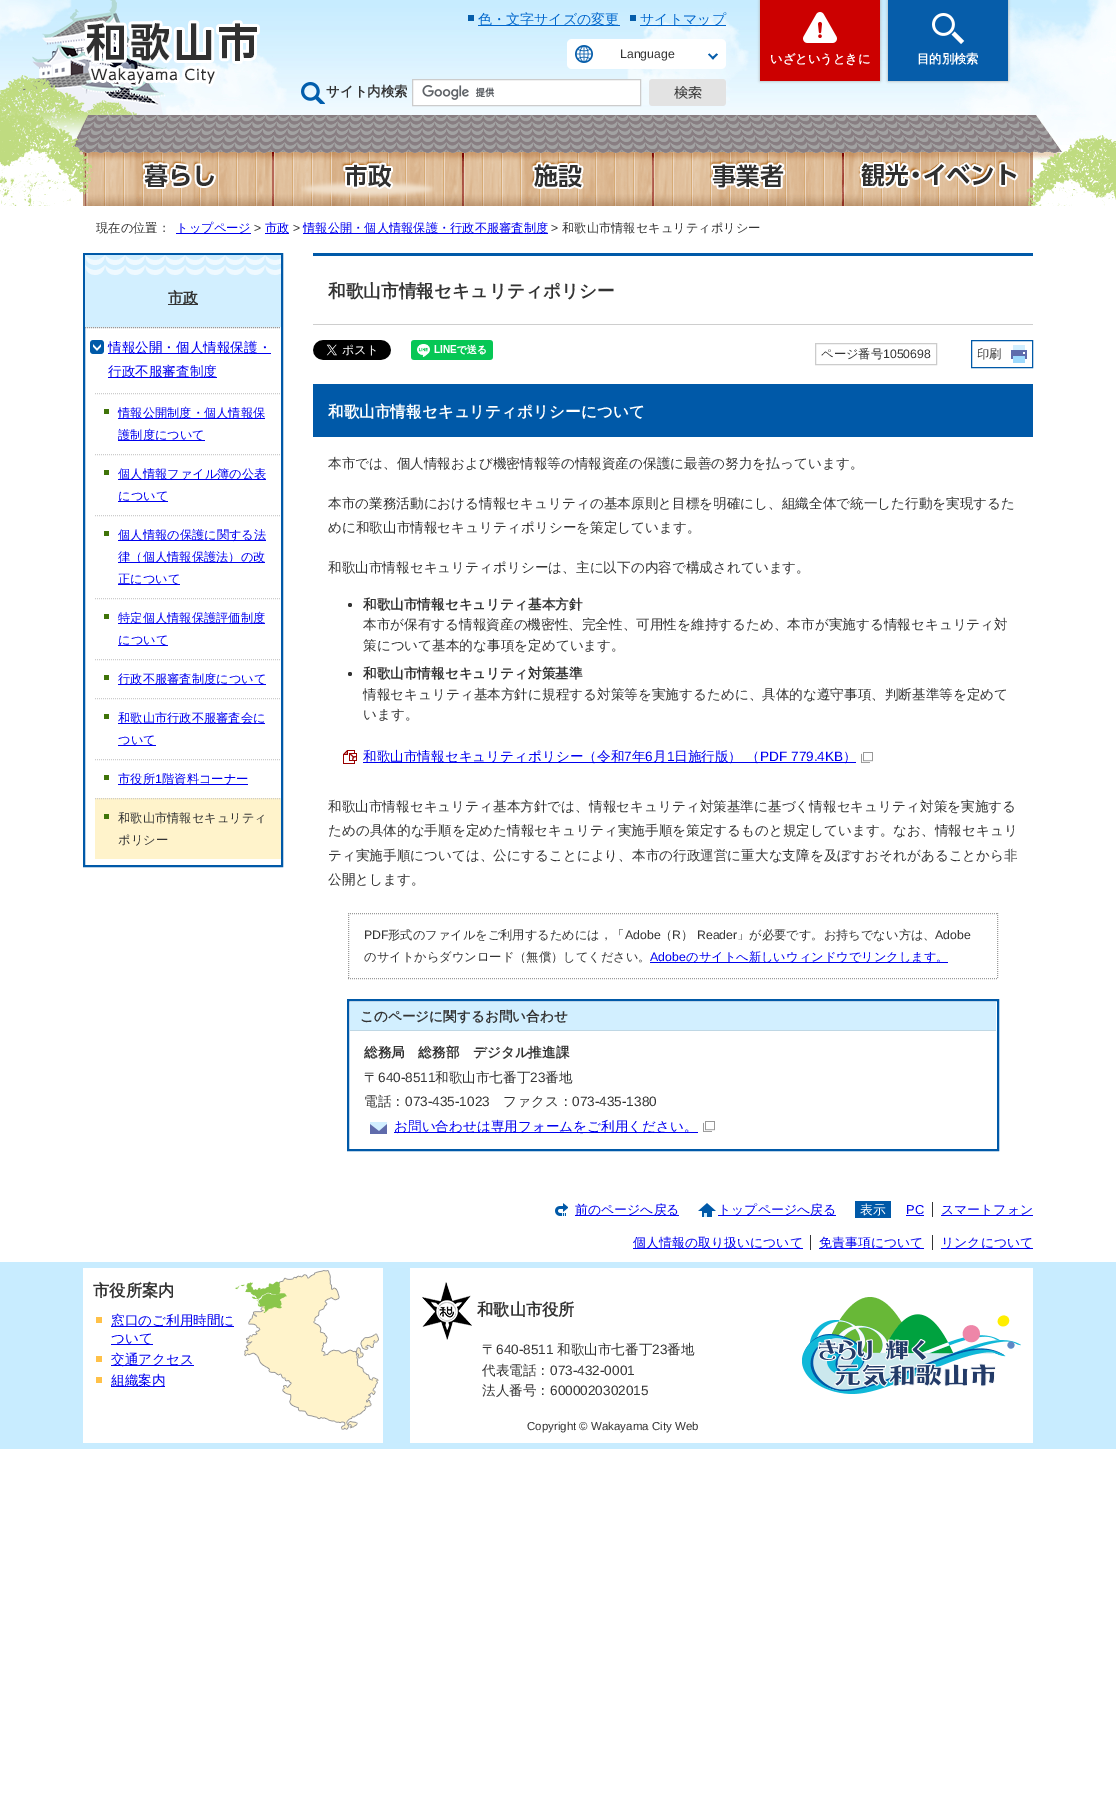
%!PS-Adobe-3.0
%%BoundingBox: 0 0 1116 1810
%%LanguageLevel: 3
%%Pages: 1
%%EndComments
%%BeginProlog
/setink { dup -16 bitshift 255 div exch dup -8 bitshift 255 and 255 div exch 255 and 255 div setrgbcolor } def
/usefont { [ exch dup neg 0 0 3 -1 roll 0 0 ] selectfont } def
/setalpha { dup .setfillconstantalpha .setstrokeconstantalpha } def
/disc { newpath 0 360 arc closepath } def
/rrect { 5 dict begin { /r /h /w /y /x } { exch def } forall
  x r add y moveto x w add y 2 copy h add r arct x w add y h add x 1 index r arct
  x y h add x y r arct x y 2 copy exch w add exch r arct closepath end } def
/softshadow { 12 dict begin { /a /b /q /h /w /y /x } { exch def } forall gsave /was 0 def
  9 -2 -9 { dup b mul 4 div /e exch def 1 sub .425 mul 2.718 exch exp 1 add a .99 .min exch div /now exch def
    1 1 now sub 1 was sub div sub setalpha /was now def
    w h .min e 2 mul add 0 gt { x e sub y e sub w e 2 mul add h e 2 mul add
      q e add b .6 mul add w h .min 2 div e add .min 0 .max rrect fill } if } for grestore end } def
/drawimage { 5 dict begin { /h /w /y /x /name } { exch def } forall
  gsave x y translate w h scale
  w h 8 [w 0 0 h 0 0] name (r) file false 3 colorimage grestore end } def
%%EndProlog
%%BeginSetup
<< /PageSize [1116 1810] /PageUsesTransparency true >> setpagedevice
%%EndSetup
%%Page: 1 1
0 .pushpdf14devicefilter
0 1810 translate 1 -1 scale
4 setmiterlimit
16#FFFFFF setink
0 0 1116 1810 rectfill
(img1.raw) 0 0 1116 145 drawimage
(img2.raw) 0 0 167 137 drawimage
(img3.raw) 0 109 1116 97 drawimage
(img4.raw) 83 20 177 67 drawimage
16#065DAA setink
468 15 6 6 rectfill
16#0066CC setink
478 25 142 1 rectfill
/WenQuanYiZenHei-Medium 14 usefont
478 24 moveto (色・文字サイズの変更) show
16#065DAA setink
630 15 6 6 rectfill
16#0066CC setink
640 25 86 1 rectfill
640 24 moveto (サイトマップ) show
16#FFFFFF setink
567 39 159 30 5 rrect fill
(img5.raw) 575 45 18 18 drawimage
/LiberationSans-Regular 12.25 usefont
16#333333 setink
620 58 moveto (Language) show
16#065DAA setink
718 54.5 moveto 713 59.5 lineto 711.5 58 lineto 716.5 53.5 lineto closepath fill
714 58 moveto 713 59.5 lineto 708 54.5 lineto 709.5 53.5 lineto closepath fill
(img6.raw) 301 82 24 22 drawimage
/WenQuanYiZenHei-Bold 13.5 usefont
16#333333 setink
326 96 moveto (サイト内検索) show
16#FFFFFF setink
413 80 227 25 rectfill
(img7.raw) 422 85 73 15 drawimage
16#CCCCCC setink
412.5 79.5 228 26 rectstroke
(img8.raw) 649 79 77 27 drawimage
16#AAAAAA setink
760 0 120 81 0 1.5 1 softshadow
16#CC0000 setink
760 0 120 81 rectfill
(img9.raw) 803 12 34 31 drawimage
/WenQuanYiZenHei-Bold 12.25 usefont
16#FFFFFF setink
770 63 moveto (いざというときに) show
16#AAAAAA setink
888 0 120 81 0 1.5 1 softshadow
16#065DAA setink
888 0 120 81 rectfill
(img10.raw) 932 13 33 31 drawimage
16#FFFFFF setink
917 63 moveto (目的別検索) show
(img11.raw) 141 159 75 30 drawimage
(img12.raw) 301 159 134 39 drawimage
(img13.raw) 530 159 54 31 drawimage
(img14.raw) 709 159 77 31 drawimage
(img15.raw) 857 159 162 30 drawimage
/WenQuanYiZenHei-Medium 12.25 usefont
16#333333 setink
96 232 moveto (現在の位置：) show
16#0000EE setink
176 233 75 1 rectfill
176 232 moveto (トップページ) show
/LiberationSans-Regular 12.25 usefont
16#333333 setink
254 232 moveto (>) show
16#0000EE setink
265 233 24 1 rectfill
/WenQuanYiZenHei-Medium 12.25 usefont
265 232 moveto (市政) show
/LiberationSans-Regular 12.25 usefont
16#333333 setink
293 232 moveto (>) show
16#0000EE setink
303 233 245 1 rectfill
/WenQuanYiZenHei-Medium 12.25 usefont
303 232 moveto (情報公開・個人情報保護・行政不服審査制度) show
/LiberationSans-Regular 12.25 usefont
16#333333 setink
551 232 moveto (>) show
/WenQuanYiZenHei-Medium 12.25 usefont
562 232 moveto (和歌山市情報セキュリティポリシー) show
16#0059A8 setink
2 setlinewidth
84 254 198 612 rectstroke
16#D2EFFF setink
85 275 196 52 rectfill
(img16.raw) 85 255 196 20 drawimage
16#333333 setink
168 304 30 1 rectfill
/WenQuanYiZenHei-Bold 15 usefont
168 303 moveto (市政) show
(img17.raw) 90 340 14 14 drawimage
16#999999 setink
1 setlinewidth
[1 1] 0 setdash
85 327.5 moveto 281 327.5 lineto stroke
16#0000EE setink
108 353 163 1 rectfill
/WenQuanYiZenHei-Medium 13.6 usefont
108 352 moveto (情報公開・個人情報保護・) show
108 377 109 1 rectfill
108 376 moveto (行政不服審査制度) show
16#407409 setink
104 409 5 5 rectfill
16#CCCCCC setink
95 393.5 moveto 281 393.5 lineto stroke
16#0000EE setink
118 418 147 1 rectfill
/WenQuanYiZenHei-Medium 12.25 usefont
118 417 moveto (情報公開制度・個人情報保) show
118 440 87 1 rectfill
118 439 moveto (護制度について) show
16#407409 setink
104 470 5 5 rectfill
16#CCCCCC setink
95 454.5 moveto 281 454.5 lineto stroke
16#0000EE setink
118 479 148 1 rectfill
118 478 moveto (個人情報ファイル簿の公表) show
118 501 50 1 rectfill
118 500 moveto (について) show
16#407409 setink
104 531 5 5 rectfill
16#CCCCCC setink
95 515.5 moveto 281 515.5 lineto stroke
16#0000EE setink
118 540 148 1 rectfill
118 539 moveto (個人情報の保護に関する法) show
118 562 147 1 rectfill
118 561 moveto (律（個人情報保護法）の改) show
118 584 62 1 rectfill
118 583 moveto (正について) show
16#407409 setink
104 614 5 5 rectfill
16#CCCCCC setink
95 598.5 moveto 281 598.5 lineto stroke
16#0000EE setink
118 623 147 1 rectfill
118 622 moveto (特定個人情報保護評価制度) show
118 645 50 1 rectfill
118 644 moveto (について) show
16#407409 setink
104 675 5 5 rectfill
16#CCCCCC setink
95 659.5 moveto 281 659.5 lineto stroke
16#0000EE setink
118 684 148 1 rectfill
118 683 moveto (行政不服審査制度について) show
16#407409 setink
104 714 5 5 rectfill
16#CCCCCC setink
95 698.5 moveto 281 698.5 lineto stroke
16#0000EE setink
118 723 147 1 rectfill
118 722 moveto (和歌山市行政不服審査会に) show
118 745 38 1 rectfill
118 744 moveto (ついて) show
16#407409 setink
104 775 5 5 rectfill
16#CCCCCC setink
95 759.5 moveto 281 759.5 lineto stroke
16#0000EE setink
118 784 130 1 rectfill
118 783 moveto (市役所) show
/LiberationSans-Regular 12.25 usefont
155 783 moveto (1) show
/WenQuanYiZenHei-Medium 12.25 usefont
162 783 moveto (階資料コーナー) show
16#FFF3CB setink
95 798 186 61 rectfill
16#407409 setink
104 814 5 5 rectfill
16#CCCCCC setink
95 798.5 moveto 281 798.5 lineto stroke
16#333333 setink
118 822 moveto (和歌山市情報セキュリティ) show
118 844 moveto (ポリシー) show
16#0059A8 setink
313 253 720 3 rectfill
16#CECECE setink
313 324 720 1 rectfill
/WenQuanYiZenHei-Bold 17.7 usefont
16#333333 setink
328 297 moveto (和歌山市情報セキュリティポリシー) show
(img18.raw) 313 340 78 20 drawimage
(img19.raw) 411 340 82 20 drawimage
16#CCCCCC setink
[] 0 setdash
815.5 343.5 121 21 rectstroke
/WenQuanYiZenHei-Medium 12.25 usefont
16#333333 setink
821 358 moveto (ページ番号) show
/LiberationSans-Regular 12.25 usefont
883 358 moveto (1050698) show
16#0059A8 setink
971.5 340.5 61 27 rectstroke
(img20.raw) 1011 345 16 18 drawimage
/WenQuanYiZenHei-Medium 12.25 usefont
16#333333 setink
977 358 moveto (印刷) show
16#0059A8 setink
313 384 720 53 rectfill
/WenQuanYiZenHei-Bold 15.6 usefont
16#FFFFFF setink
328 417 moveto (和歌山市情報セキュリティポリシーについて) show
/WenQuanYiZenHei-Medium 13.6 usefont
16#333333 setink
[
    [(本市では、個人情報および機密情報等の情報資産の保護に最善の努力を払っています。) 328 468]
    [(本市の業務活動における情報セキュリティの基本原則と目標を明確にし、組織全体で統一した行動を実現するた) 328 508]
    [(めに和歌山市情報セキュリティポリシーを策定しています。) 328 532]
    [(和歌山市情報セキュリティポリシーは、主に以下の内容で構成されています。) 328 572]
] { aload pop moveto show } forall
350 605 2 disc fill
/WenQuanYiZenHei-Bold 13.6 usefont
363 609 moveto (和歌山市情報セキュリティ基本方針) show
/WenQuanYiZenHei-Medium 13.6 usefont
363 629 moveto (本市が保有する情報資産の機密性、完全性、可用性を維持するため、本市が実施する情報セキュリティ対) show
363 650 moveto (策について基本的な事項を定めています。) show
350 674 2 disc fill
/WenQuanYiZenHei-Bold 13.6 usefont
363 678 moveto (和歌山市情報セキュリティ対策基準) show
/WenQuanYiZenHei-Medium 13.6 usefont
363 699 moveto (情報セキュリティ基本方針に規程する対策等を実施するために、具体的な遵守事項、判断基準等を定めて) show
363 719 moveto (います。) show
(img21.raw) 343 750 14 14 drawimage
16#0000EE setink
363 762 493 1 rectfill
363 761 moveto (和歌山市情報セキュリティポリシー（令和) show
/LiberationSans-Regular 13.6 usefont
624 761 moveto (7) show
/WenQuanYiZenHei-Medium 13.6 usefont
632 761 moveto (年) show
/LiberationSans-Regular 13.6 usefont
645 761 moveto (6) show
/WenQuanYiZenHei-Medium 13.6 usefont
653 761 moveto (月) show
/LiberationSans-Regular 13.6 usefont
667 761 moveto (1) show
/WenQuanYiZenHei-Medium 13.6 usefont
674 761 moveto (日施行版） （) show
/LiberationSans-Regular 13.6 usefont
760 761 moveto (PDF 779.4KB) show
/WenQuanYiZenHei-Medium 13.6 usefont
843 761 moveto (）) show
(img22.raw) 861 752 12 11 drawimage
16#333333 setink
[
    [(和歌山市情報セキュリティ基本方針では、情報セキュリティ対策基準に基づく情報セキュリティ対策を実施する) 328 811]
    [(ための具体的な手順を定めた情報セキュリティ実施手順を策定するものと規定しています。なお、情報セキュリ) 328 835]
    [(ティ実施手順については、公にすることにより、本市の行政運営に重大な支障を及ぼすおそれがあることから非) 328 860]
    [(公開とします。) 328 884]
] { aload pop moveto show } forall
16#999999 setink
[1 1] 0 setdash
348 913.5 moveto 998 913.5 lineto stroke
997.5 913 moveto 997.5 979 lineto stroke
348 978.5 moveto 998 978.5 lineto stroke
348.5 913 moveto 348.5 979 lineto stroke
/LiberationSans-Regular 12.25 usefont
16#333333 setink
364 939 moveto (PDF) show
/WenQuanYiZenHei-Medium 12.25 usefont
388 939 moveto (形式のファイルをご利用するためには，「) show
/LiberationSans-Regular 12.25 usefont
625 939 moveto (Adobe) show
/WenQuanYiZenHei-Medium 12.25 usefont
660 939 moveto (（) show
/LiberationSans-Regular 12.25 usefont
672 939 moveto (R) show
/WenQuanYiZenHei-Medium 12.25 usefont
681 939 moveto (）) show
/LiberationSans-Regular 12.25 usefont
697 939 moveto (Reader) show
/WenQuanYiZenHei-Medium 12.25 usefont
737 939 moveto (」が必要です。お持ちでない方は、) show
/LiberationSans-Regular 12.25 usefont
935 939 moveto (Adobe) show
/WenQuanYiZenHei-Medium 12.25 usefont
364 961 moveto (のサイトからダウンロード（無償）してください。) show
/LiberationSans-Regular 12.25 usefont
16#0000EE setink
650 961 moveto (Adobe) show
650 962 298 1 rectfill
/WenQuanYiZenHei-Medium 12.25 usefont
686 961 moveto (のサイトへ新しいウィンドウでリンクします。) show
16#0059A8 setink
2 setlinewidth
[] 0 setdash
348 1000 650 150 rectstroke
16#D2EFFF setink
350 1002 646 28 rectfill
16#BFD7E4 setink
350 1030 646 1 rectfill
/WenQuanYiZenHei-Bold 13.6 usefont
16#333333 setink
360 1021 moveto (このページに関するお問い合わせ) show
364 1057 moveto (総務局　総務部　デジタル推進課) show
/WenQuanYiZenHei-Medium 13.6 usefont
364 1082 moveto (〒) show
/LiberationSans-Regular 13.6 usefont
378 1082 moveto (640-8511) show
/WenQuanYiZenHei-Medium 13.6 usefont
435 1082 moveto (和歌山市七番丁) show
/LiberationSans-Regular 13.6 usefont
530 1082 moveto (23) show
/WenQuanYiZenHei-Medium 13.6 usefont
545 1082 moveto (番地) show
364 1106 moveto (電話：) show
/LiberationSans-Regular 13.6 usefont
405 1106 moveto (073-435-1023) show
/WenQuanYiZenHei-Medium 13.6 usefont
503 1106 moveto (ファクス：) show
/LiberationSans-Regular 13.6 usefont
572 1106 moveto (073-435-1380) show
(img23.raw) 370 1122 17 12 drawimage
16#0000EE setink
394 1132 304 1 rectfill
/WenQuanYiZenHei-Medium 13.6 usefont
394 1131 moveto (お問い合わせは専用フォームをご利用ください。) show
(img22.raw) 703 1121 12 11 drawimage
(img24.raw) 555 1203 13 13 drawimage
575 1215 104 1 rectfill
/WenQuanYiZenHei-Medium 12.9 usefont
575 1214 moveto (前のページへ戻る) show
(img25.raw) 698 1203 18 14 drawimage
718 1215 118 1 rectfill
718 1214 moveto (トップページへ戻る) show
16#0059A8 setink
855 1201 36 17 rectfill
16#FFFFFF setink
860 1214 moveto (表示) show
/LiberationSans-Regular 12.9 usefont
16#0000EE setink
906 1214 moveto (PC) show
[
    [906 1215 18 1 16#0000EE]
    [932 1202 1 15 16#333333]
    [941 1215 92 1 16#0000EE]
] { aload pop setink rectfill } forall
/WenQuanYiZenHei-Medium 12.9 usefont
941 1214 moveto (スマートフォン) show
633 1248 170 1 rectfill
633 1247 moveto (個人情報の取り扱いについて) show
16#333333 setink
810 1235 1 15 rectfill
16#0000EE setink
819 1248 105 1 rectfill
819 1247 moveto (免責事項について) show
16#333333 setink
932 1235 1 15 rectfill
16#0000EE setink
941 1248 92 1 rectfill
941 1247 moveto (リンクについて) show
16#C8ECFF setink
0 1262 1116 187 rectfill
(img26.raw) 83 1268 950 175 drawimage
/WenQuanYiZenHei-Bold 16.25 usefont
16#333333 setink
93 1296 moveto (市役所案内) show
16#FFC148 setink
96 1317 6 6 rectfill
16#0000EE setink
111 1326 123 1 rectfill
/WenQuanYiZenHei-Medium 13.6 usefont
111 1325 moveto (窓口のご利用時間に) show
111 1344 42 1 rectfill
111 1343 moveto (ついて) show
16#FFC148 setink
96 1356 6 6 rectfill
16#0000EE setink
111 1365 83 1 rectfill
111 1364 moveto (交通アクセス) show
16#FFC148 setink
96 1377 6 6 rectfill
16#0000EE setink
111 1386 54 1 rectfill
111 1385 moveto (組織案内) show
(img27.raw) 235 1270 144 160 drawimage
(img28.raw) 422 1282 50 58 drawimage
/WenQuanYiZenHei-Bold 16.25 usefont
16#333333 setink
477 1315 moveto (和歌山市役所) show
/WenQuanYiZenHei-Medium 13.6 usefont
482 1354 moveto (〒) show
/LiberationSans-Regular 13.6 usefont
496 1354 moveto (640-8511) show
/WenQuanYiZenHei-Medium 13.6 usefont
557 1354 moveto (和歌山市七番丁) show
/LiberationSans-Regular 13.6 usefont
652 1354 moveto (23) show
/WenQuanYiZenHei-Medium 13.6 usefont
667 1354 moveto (番地) show
482 1375 moveto (代表電話：) show
/LiberationSans-Regular 13.6 usefont
550 1375 moveto (073-432-0001) show
/WenQuanYiZenHei-Medium 13.6 usefont
482 1395 moveto (法人番号：) show
/LiberationSans-Regular 13.6 usefont
550 1395 moveto (6000020302015) show
(img29.raw) 802 1297 219 97 drawimage
/LiberationSans-Regular 11.5 usefont
527 1430 moveto (Copyright © Wakayama City Web) show
.poppdf14devicefilter showpage
%%EOF
